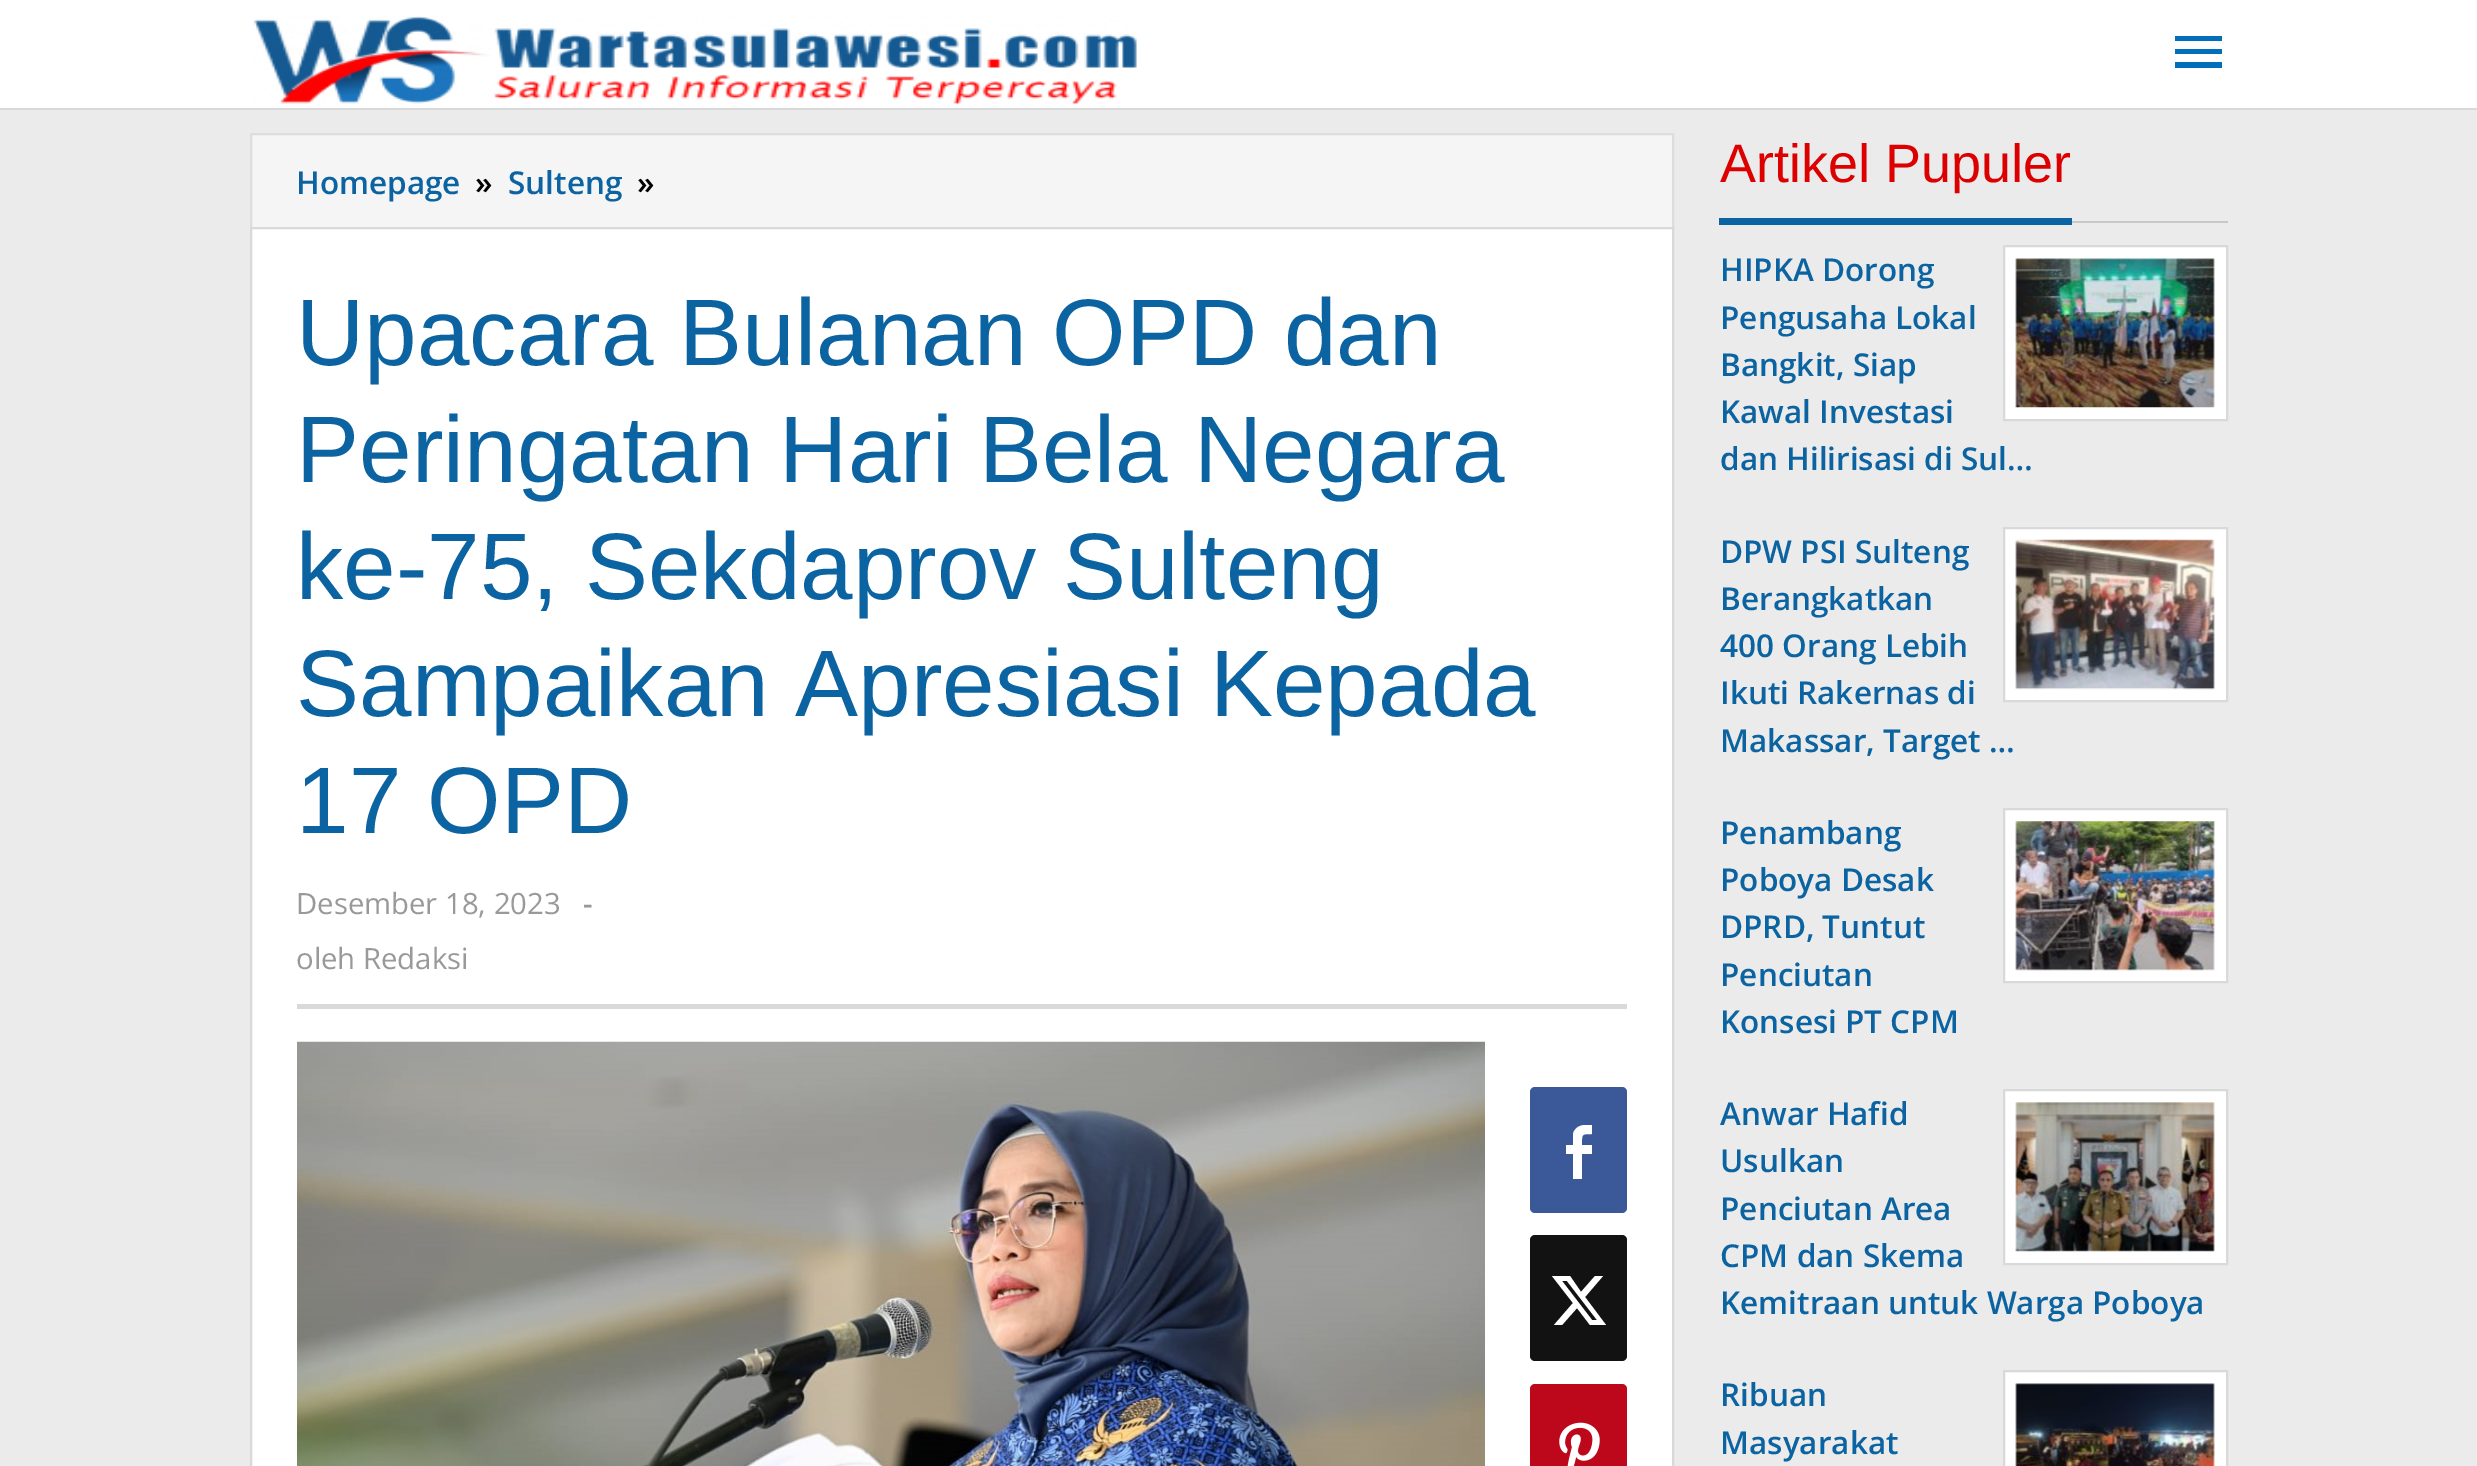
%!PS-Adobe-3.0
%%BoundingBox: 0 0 2477 1466
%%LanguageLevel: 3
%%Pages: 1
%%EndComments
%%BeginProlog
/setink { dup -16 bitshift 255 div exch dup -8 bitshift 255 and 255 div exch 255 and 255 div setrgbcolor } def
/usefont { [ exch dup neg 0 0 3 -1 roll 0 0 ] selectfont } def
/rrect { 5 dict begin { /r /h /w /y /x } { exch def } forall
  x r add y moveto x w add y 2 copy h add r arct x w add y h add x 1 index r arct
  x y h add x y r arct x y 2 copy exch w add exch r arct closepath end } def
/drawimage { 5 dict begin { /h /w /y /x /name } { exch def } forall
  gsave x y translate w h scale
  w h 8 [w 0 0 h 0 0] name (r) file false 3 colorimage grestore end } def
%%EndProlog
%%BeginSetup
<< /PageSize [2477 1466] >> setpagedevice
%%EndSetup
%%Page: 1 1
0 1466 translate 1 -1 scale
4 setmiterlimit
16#EBEBEB setink
0 0 2477 1466 rectfill
16#FFFFFF setink
0 0 2477 108 rectfill
16#D9D9D9 setink
0 108 2477 2 rectfill
(img1.raw) 253 16 884 88 drawimage
16#016FBA setink
2175 68 moveto 2222 68 lineto 2222 62 lineto 2175 62 lineto closepath 2175 54 moveto 2222 54 lineto 2222 49 lineto 2175 49 lineto closepath 2175 36 moveto 2175 41 lineto 2222 41 lineto 2222 36 lineto closepath fill
16#F5F5F5 setink
252 135 1420 92 rectfill
16#DDDDDD setink
2 setlinewidth
251 134 1422 95 rectstroke
/OpenSans-SemiBold 31.5 usefont
16#0B63A1 setink
296 194 moveto (Homepage) show
16#000000 setink
475 194 moveto (») show
16#0B63A1 setink
508 194 moveto (Sulteng) show
16#000000 setink
637 194 moveto (») show
16#FFFFFF setink
251 228 moveto 1673 228 lineto 1673 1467 lineto 251 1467 lineto closepath gsave fill grestore
16#D9D9D9 setink
stroke
297 1004 1330 5 rectfill
/LiberationSans-Regular 94.5 usefont
16#0B63A1 setink
[
    [(Upacara Bulanan OPD dan) 296 365]
    [(Peringatan Hari Bela Negara) 296 482]
    [(ke-75, Sekdaprov Sulteng) 296 599]
    [(Sampaikan Apresiasi Kepada) 296 716]
    [(17 OPD) 296 833]
] { aload pop moveto show } forall
/OpenSans-Regular 29.25 usefont
16#999999 setink
296 914 moveto (Desember 18, 2023) show
/OpenSans-SemiBold 29.25 usefont
583 914 moveto (-) show
/OpenSans-Regular 29.25 usefont
296 969 moveto (oleh Redaksi) show
(img2.raw) 297 1041 1188 425 drawimage
16#3B5998 setink
1530 1087 97 126 5 rrect fill
gsave
1566 1125 27 54 rectclip
16#FFFFFF setink
1573 1179 moveto 1573 1154 lineto 1566 1154 lineto 1566 1145 lineto 1573 1145 lineto 1573 1134 lineto 1575 1125 1585 1124 1592 1125 curveto 1592 1134 lineto 1581 1134 1582 1134 1582 1145 curveto 1592 1145 lineto 1592 1154 lineto 1582 1154 lineto 1582 1179 lineto 1573 1179 lineto fill
grestore
16#121212 setink
1530 1235 97 126 5 rrect fill
16#FFFFFF setink
1595 1276 moveto 1603 1276 lineto 1585 1297 lineto 1606 1325 lineto 1590 1325 lineto 1577 1308 lineto 1562 1325 lineto 1554 1325 lineto 1573 1303 lineto 1552 1276 lineto 1570 1276 lineto 1581 1292 lineto closepath 1592 1320 moveto 1597 1320 lineto 1567 1281 lineto 1562 1281 lineto closepath fill
16#BD081C setink
1530 1384 97 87 5 rrect fill
(img3.raw) 1559 1422 41 44 drawimage
16#C8C8C8 setink
2072 221 156 2 rectfill
16#0B63A1 setink
1719 218 353 7 rectfill
/LiberationSans-Regular 54 usefont
16#DD0000 setink
1720 182 moveto (Artikel Pupuler) show
/OpenSans-SemiBold 31.5 usefont
16#0B63A1 setink
1720 281 moveto (HIPKA Dorong) show
16#FFFFFF setink
2004 246 moveto 2227 246 lineto 2227 420 lineto 2004 420 lineto closepath gsave fill grestore
16#D9D9D9 setink
stroke
(img4.raw) 2015 258 200 150 drawimage
16#0B63A1 setink
[
    [(Pengusaha Lokal) 1720 329]
    [(Bangkit, Siap) 1720 376]
    [(Kawal Investasi) 1720 423]
    [(dan Hilirisasi di Sul…) 1720 470]
    [(DPW PSI Sulteng) 1720 563]
] { aload pop moveto show } forall
16#FFFFFF setink
2004 528 moveto 2227 528 lineto 2227 701 lineto 2004 701 lineto closepath gsave fill grestore
16#D9D9D9 setink
stroke
(img5.raw) 2015 539 200 151 drawimage
16#0B63A1 setink
[
    [(Berangkatkan) 1720 610]
    [(400 Orang Lebih) 1720 657]
    [(Ikuti Rakernas di) 1720 704]
    [(Makassar, Target …) 1720 752]
    [(Penambang) 1720 844]
] { aload pop moveto show } forall
16#FFFFFF setink
2004 809 moveto 2227 809 lineto 2227 982 lineto 2004 982 lineto closepath gsave fill grestore
16#D9D9D9 setink
stroke
(img6.raw) 2015 821 200 150 drawimage
16#0B63A1 setink
[
    [(Poboya Desak) 1720 891]
    [(DPRD, Tuntut) 1720 938]
    [(Penciutan) 1720 986]
    [(Konsesi PT CPM) 1720 1033]
    [(Anwar Hafid) 1720 1125]
] { aload pop moveto show } forall
16#FFFFFF setink
2004 1090 moveto 2227 1090 lineto 2227 1264 lineto 2004 1264 lineto closepath gsave fill grestore
16#D9D9D9 setink
stroke
(img7.raw) 2015 1102 200 150 drawimage
16#0B63A1 setink
[
    [(Usulkan) 1720 1172]
    [(Penciutan Area) 1720 1220]
    [(CPM dan Skema) 1720 1267]
    [(Kemitraan untuk Warga Poboya) 1720 1314]
    [(Ribuan) 1720 1406]
] { aload pop moveto show } forall
16#FFFFFF setink
2004 1371 moveto 2227 1371 lineto 2227 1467 lineto 2004 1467 lineto closepath gsave fill grestore
16#D9D9D9 setink
stroke
(img8.raw) 2015 1383 200 83 drawimage
16#0B63A1 setink
1720 1454 moveto (Masyarakat) show
showpage
%%EOF
